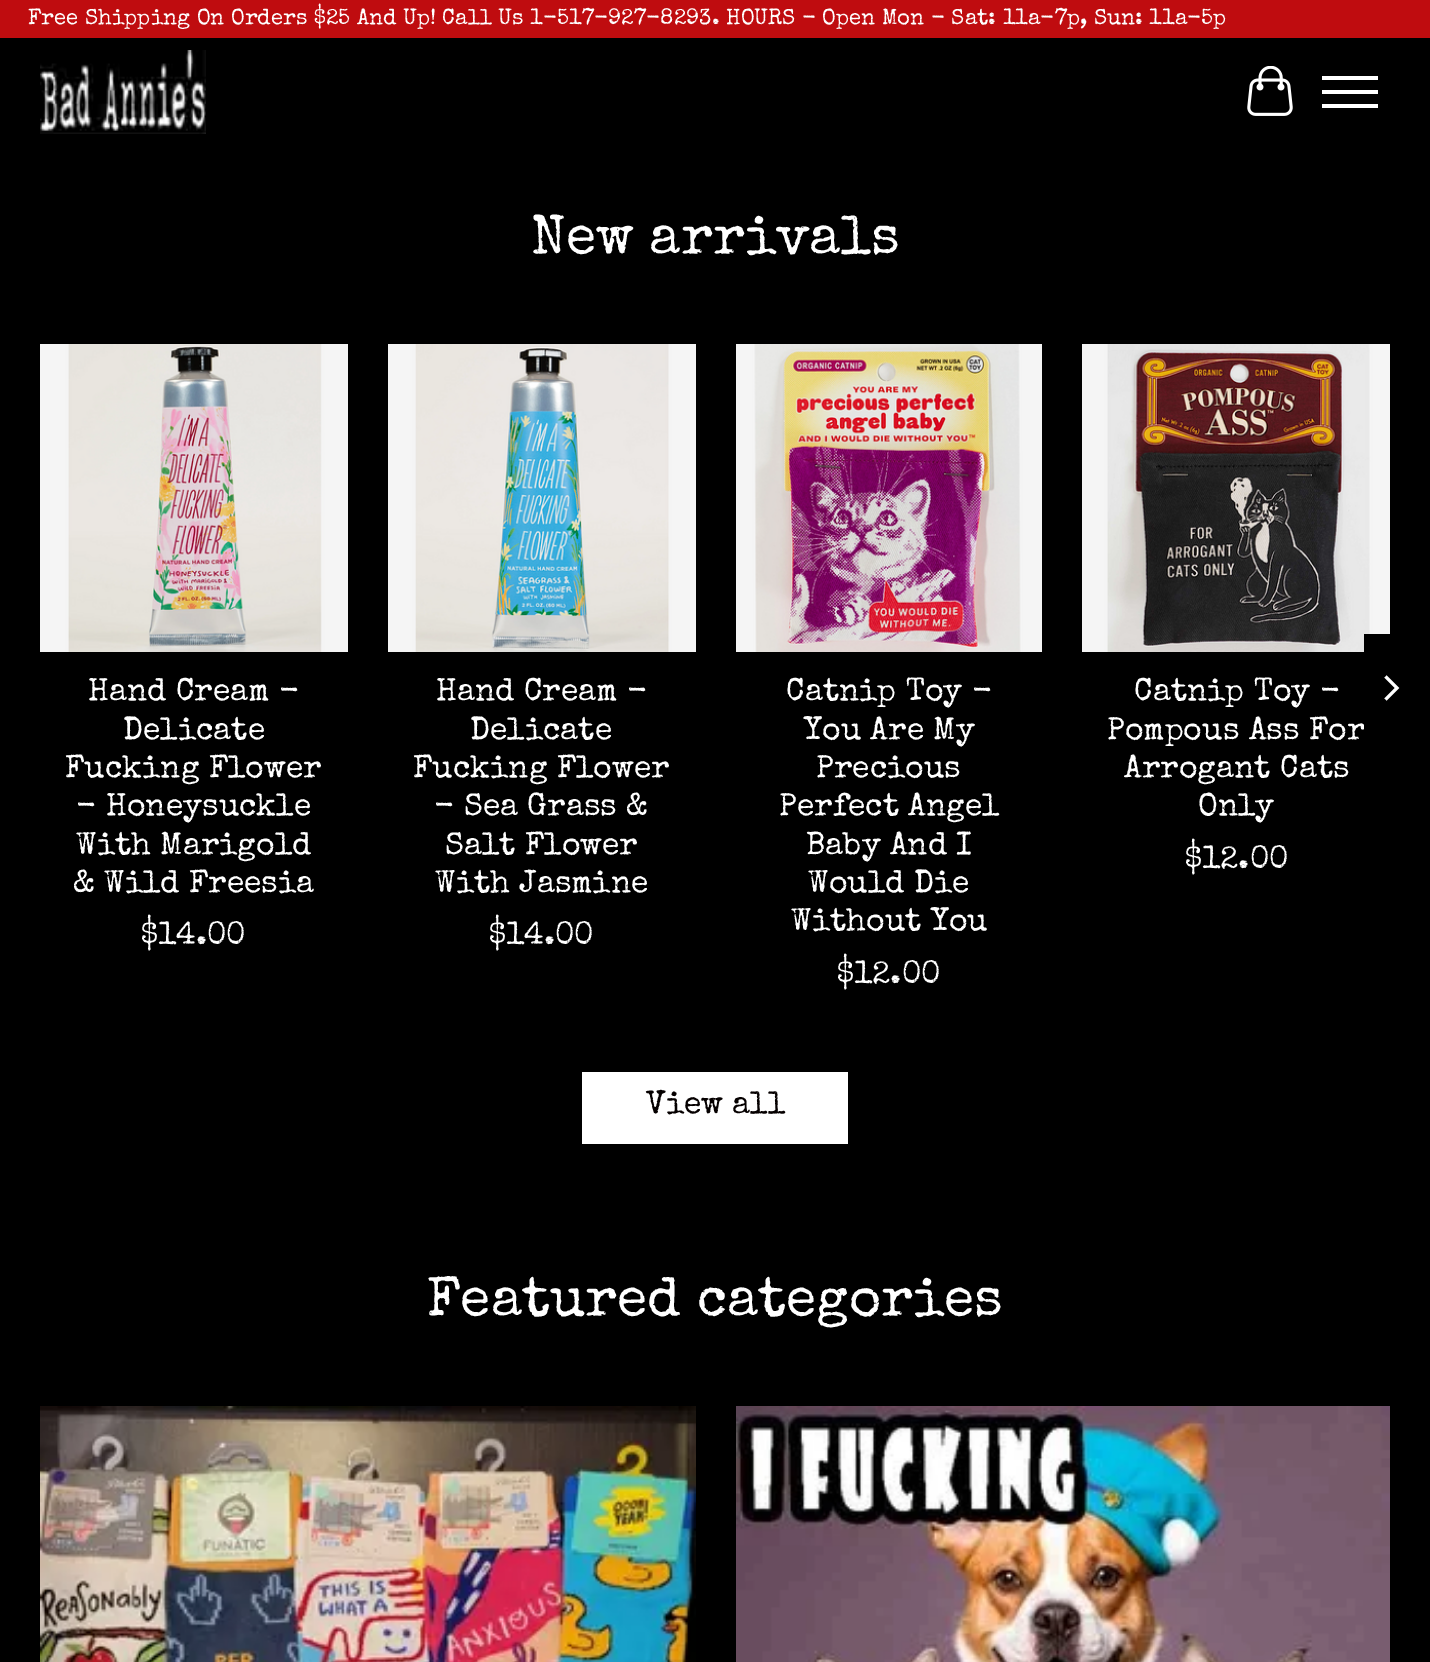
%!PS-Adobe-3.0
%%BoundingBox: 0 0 1430 1662
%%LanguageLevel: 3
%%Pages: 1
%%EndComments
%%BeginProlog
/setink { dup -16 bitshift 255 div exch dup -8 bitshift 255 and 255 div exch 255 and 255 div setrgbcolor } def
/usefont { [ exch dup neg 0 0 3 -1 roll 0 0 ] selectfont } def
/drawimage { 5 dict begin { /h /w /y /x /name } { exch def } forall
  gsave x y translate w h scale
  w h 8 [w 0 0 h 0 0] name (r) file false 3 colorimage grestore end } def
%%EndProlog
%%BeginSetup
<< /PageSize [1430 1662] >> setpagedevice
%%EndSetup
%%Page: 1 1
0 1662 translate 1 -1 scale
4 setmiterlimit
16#000000 setink
0 0 1430 1662 rectfill
16#BF0C0F setink
0 0 1430 38 rectfill
/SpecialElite-Regular 22.22 usefont
16#FFFFFF setink
28 24 moveto (Free Shipping On Orders $25 And Up! Call Us 1-517-927-8293. HOURS - Open Mon - Sat: 11a-7p, Sun: 11a-5p) show
(img1.raw) 40 50 166 84 drawimage
(img2.raw) 1247 66 46 50 drawimage
[
    [1322 90 56 4 16#FFFFFF]
    [1322 76 56 4 16#FFFFFF]
    [1322 104 56 4 16#FFFFFF]
] { aload pop setink rectfill } forall
/SpecialElite-Regular 55.25 usefont
531 253 moveto (New arrivals) show
(img3.raw) 40 344 308 308 drawimage
/SpecialElite-Regular 32 usefont
[
    [(Hand Cream -) 88 700]
    [(Delicate) 123 739]
    [(Fucking Flower) 65 777]
    [(- Honeysuckle) 76 815]
    [(With Marigold) 76 854]
    [(& Wild Freesia) 73 892]
    [($14.00) 141 944]
] { aload pop moveto show } forall
(img4.raw) 388 344 308 308 drawimage
[
    [(Hand Cream -) 436 700]
    [(Delicate) 470 739]
    [(Fucking Flower) 413 777]
    [(- Sea Grass &) 434 815]
    [(Salt Flower) 445 854]
    [(With Jasmine) 435 892]
    [($14.00) 489 944]
] { aload pop moveto show } forall
(img5.raw) 736 344 306 308 drawimage
[
    [(Catnip Toy -) 786 700]
    [(You Are My) 804 739]
    [(Precious) 816 777]
    [(Perfect Angel) 779 815]
    [(Baby And I) 806 854]
    [(Would Die) 808 892]
    [(Without You) 791 930]
    [($12.00) 837 983]
] { aload pop moveto show } forall
(img6.raw) 1082 344 308 308 drawimage
[
    [(Catnip Toy -) 1134 700]
    [(Pompous Ass For) 1107 739]
    [(Arrogant Cats) 1124 777]
    [(Only) 1198 815]
    [($12.00) 1185 868]
] { aload pop moveto show } forall
16#000000 setink
1364 634 26 96 rectfill
16#FFFFFF setink
2.9 setlinewidth
1385.5 699.5 moveto 1397 688 lineto 1385.5 676.5 lineto stroke
582 1072 266 72 rectfill
16#050000 setink
646 1113 moveto (View all) show
/SpecialElite-Regular 55.25 usefont
16#FFFFFF setink
427 1315 moveto (Featured categories) show
(img7.raw) 40 1406 656 256 drawimage
(img8.raw) 736 1406 654 256 drawimage
showpage
%%EOF
